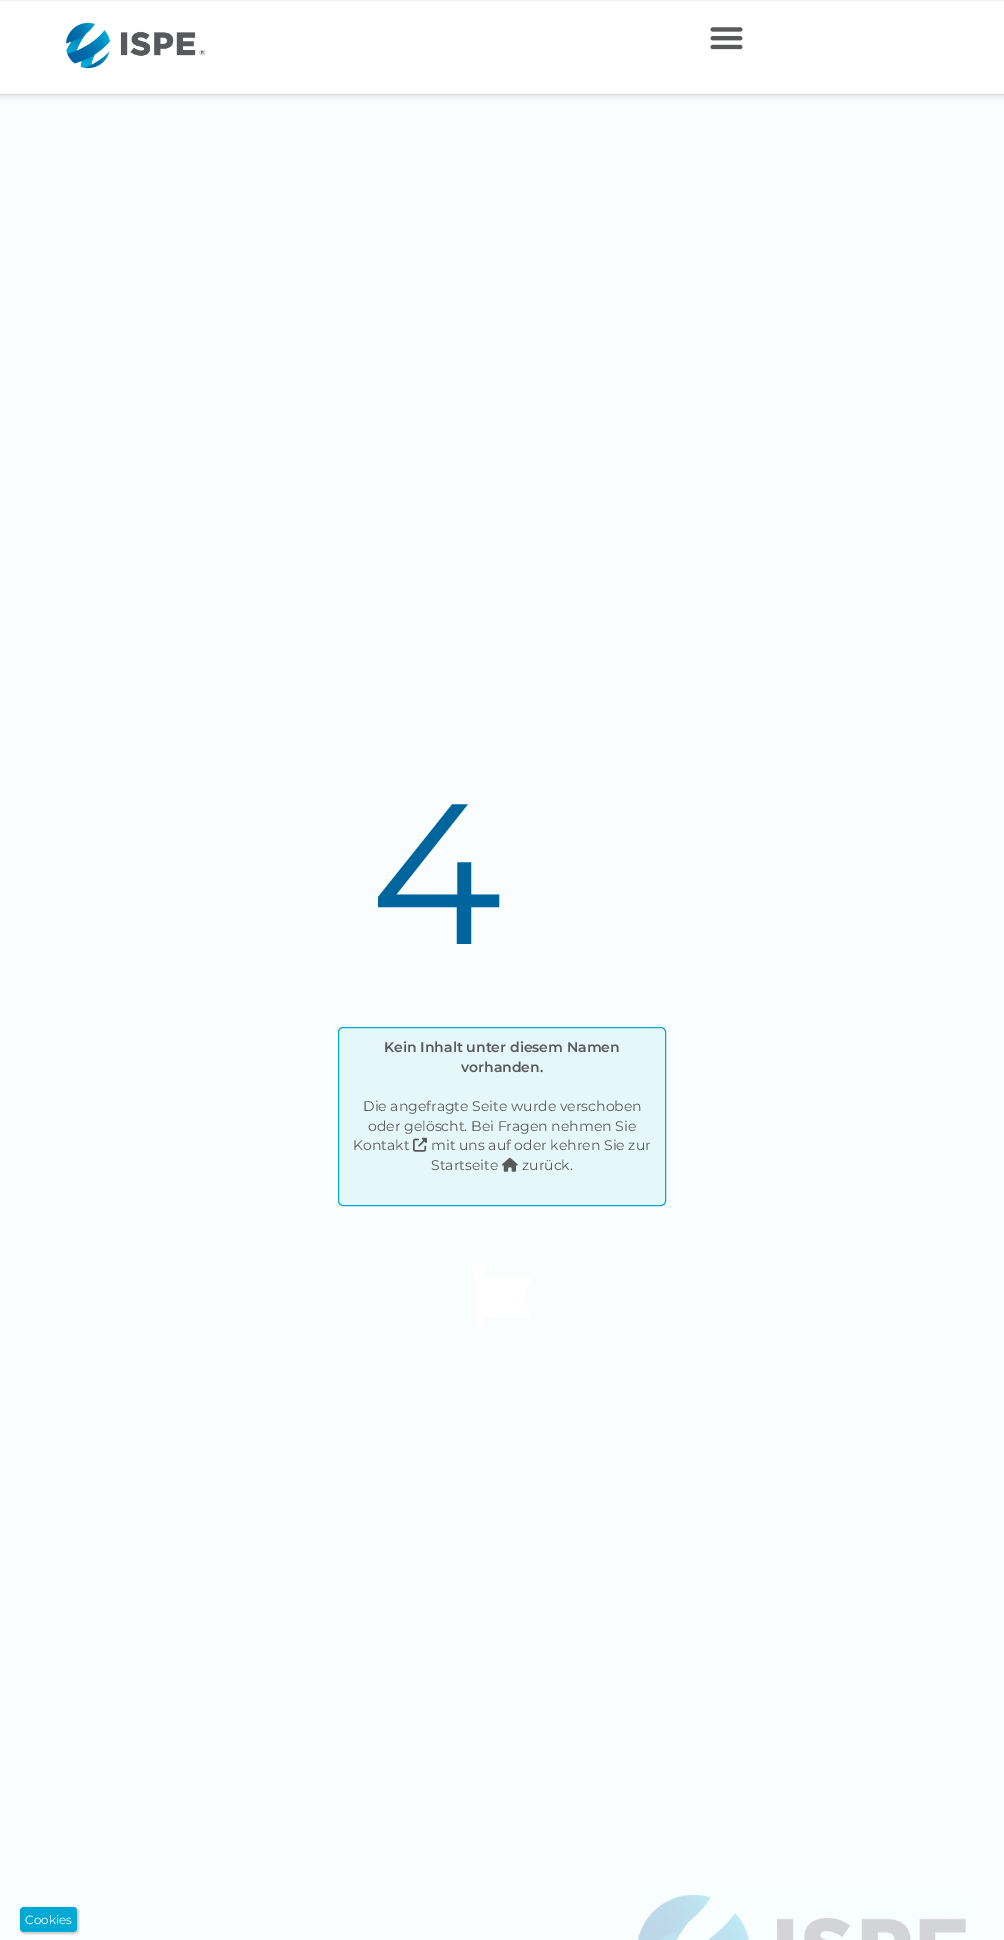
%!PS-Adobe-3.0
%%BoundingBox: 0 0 1004 1940
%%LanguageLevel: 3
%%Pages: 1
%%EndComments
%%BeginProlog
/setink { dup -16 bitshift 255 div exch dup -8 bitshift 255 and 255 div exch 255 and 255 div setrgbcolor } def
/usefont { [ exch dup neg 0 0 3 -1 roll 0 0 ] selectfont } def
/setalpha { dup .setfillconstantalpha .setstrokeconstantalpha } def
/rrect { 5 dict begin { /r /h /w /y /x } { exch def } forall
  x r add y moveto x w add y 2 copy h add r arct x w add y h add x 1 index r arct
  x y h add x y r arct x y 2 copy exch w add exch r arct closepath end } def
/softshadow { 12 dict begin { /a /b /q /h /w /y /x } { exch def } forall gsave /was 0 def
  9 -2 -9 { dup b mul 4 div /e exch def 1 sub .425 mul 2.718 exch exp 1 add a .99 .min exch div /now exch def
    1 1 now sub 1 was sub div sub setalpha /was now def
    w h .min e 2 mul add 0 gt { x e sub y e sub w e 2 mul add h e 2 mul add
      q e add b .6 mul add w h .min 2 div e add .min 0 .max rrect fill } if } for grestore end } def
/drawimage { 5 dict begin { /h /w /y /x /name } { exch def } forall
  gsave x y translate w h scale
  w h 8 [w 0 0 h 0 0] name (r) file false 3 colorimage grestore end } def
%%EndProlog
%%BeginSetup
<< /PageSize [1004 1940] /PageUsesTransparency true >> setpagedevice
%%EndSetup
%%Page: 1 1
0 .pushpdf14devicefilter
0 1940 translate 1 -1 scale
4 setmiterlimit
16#FFFFFF setink
0 0 1004 1940 rectfill
16#F1F1F1 setink
0 94 1004 1 rectfill
16#F9FDFE setink
0 95 1004 1845 rectfill
gsave
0 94 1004 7 rectclip
16#5E5E5E setink
0 -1 1004 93 0 5 0.5 softshadow
grestore
(img1.raw) 66 22 140 47 drawimage
(img2.raw) 710 27 33 23 drawimage
16#F1F1F1 setink
0 0 1004 1 rectfill
(img3.raw) 637 1894 329 46 drawimage
/Montserrat-Thin 200 usefont
16#00649D setink
370 944 moveto (4) show
16#E6F7FB setink
338.5 1027.5 327 178 4.5 rrect gsave fill grestore
16#00A9D4 setink
stroke
/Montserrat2-Thin 14 usefont
16#58595B setink
384 1052 moveto (Kein Inhalt unter diesem Namen) show
461 1072 moveto (vorhanden.) show
/Montserrat-Thin 14 usefont
[
    [(Die angefragte Seite wurde verschoben) 363 1111]
    [(oder gelöscht. Bei Fragen nehmen Sie) 368 1131]
    [(Kontakt) 353 1150]
] { aload pop moveto show } forall
(img4.raw) 413 1137 14 15 drawimage
431 1150 moveto (mit uns auf oder kehren Sie zur) show
431 1170 moveto (Startseite) show
(img5.raw) 502 1157 16 15 drawimage
522 1170 moveto (zurück.) show
16#FFFFFF setink
483 1277 moveto 485 1276 486 1273 486 1271 curveto 484 1259 467 1269 476 1276 curveto 476 1326 lineto 483 1326 lineto 483 1318 lineto 528 1318 lineto 532 1316 528 1310 527 1308 curveto 523 1297 lineto 527 1287 lineto 528 1285 532 1279 528 1277 curveto closepath fill
16#949494 setink
20 1907 59 27 5 0.5 0.43 softshadow
16#00A9D4 setink
20 1907 57 25 4 rrect fill
/Montserrat-Thin 12 usefont
16#FFFFFF setink
25 1924 moveto (Cookies) show
.poppdf14devicefilter showpage
%%EOF
